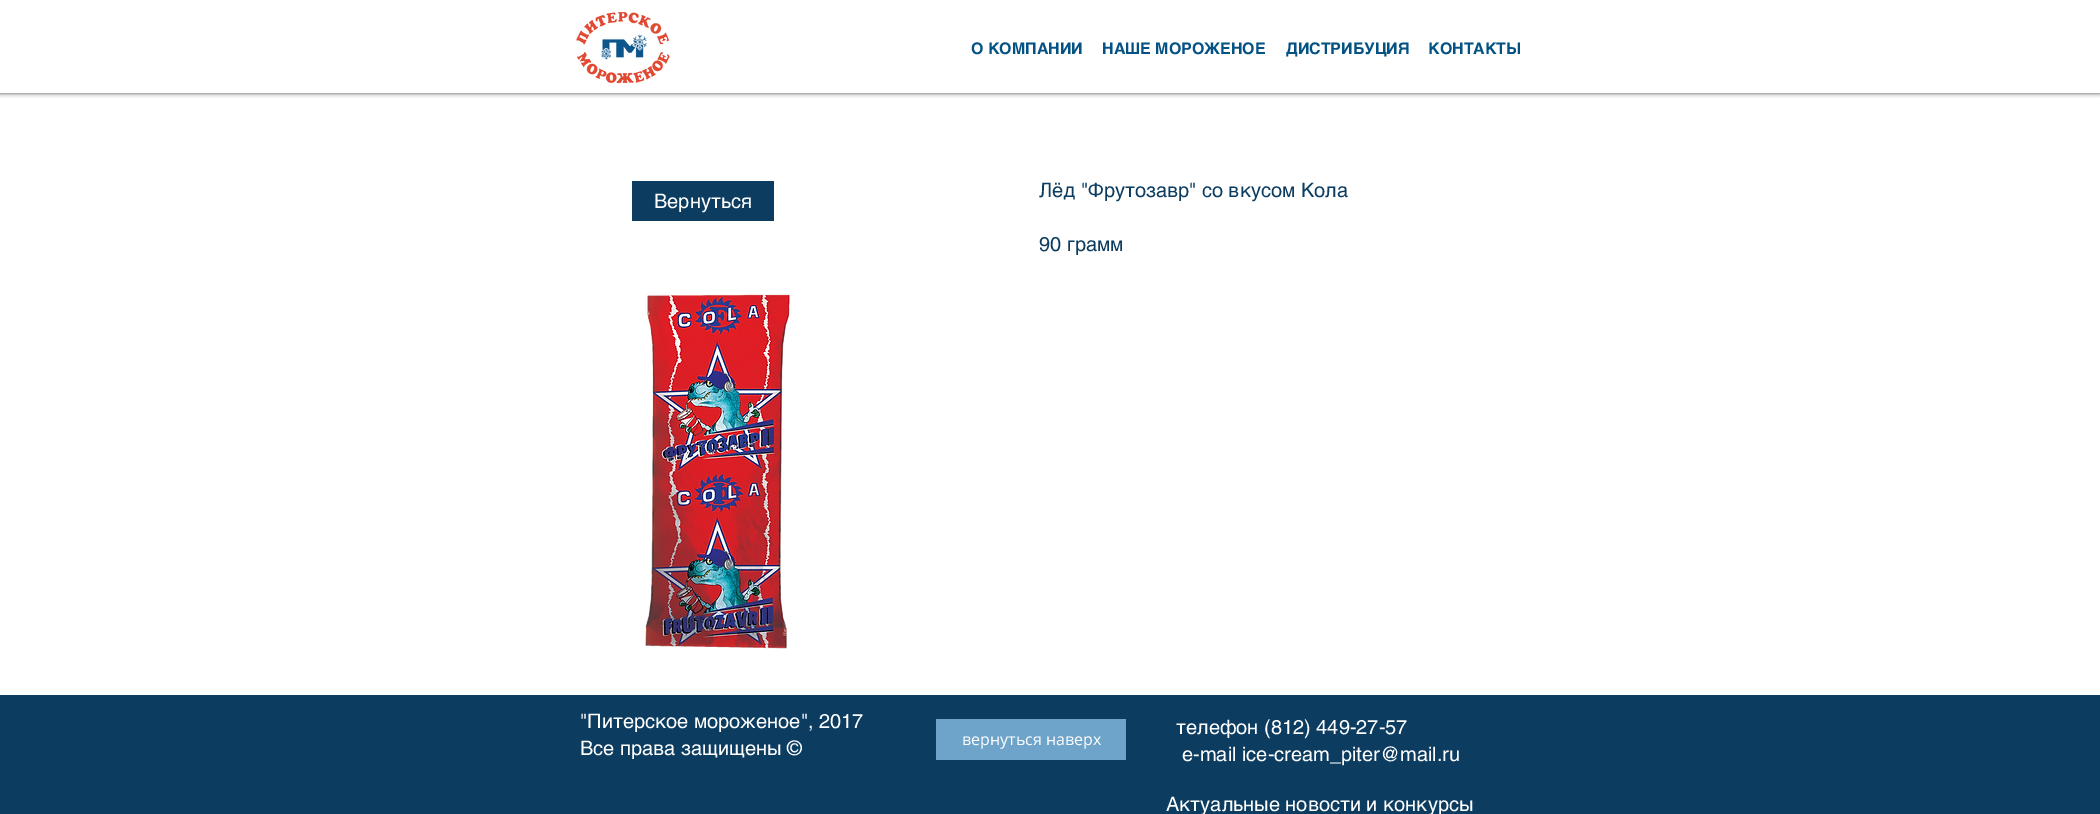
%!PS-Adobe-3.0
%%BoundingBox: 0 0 2100 814
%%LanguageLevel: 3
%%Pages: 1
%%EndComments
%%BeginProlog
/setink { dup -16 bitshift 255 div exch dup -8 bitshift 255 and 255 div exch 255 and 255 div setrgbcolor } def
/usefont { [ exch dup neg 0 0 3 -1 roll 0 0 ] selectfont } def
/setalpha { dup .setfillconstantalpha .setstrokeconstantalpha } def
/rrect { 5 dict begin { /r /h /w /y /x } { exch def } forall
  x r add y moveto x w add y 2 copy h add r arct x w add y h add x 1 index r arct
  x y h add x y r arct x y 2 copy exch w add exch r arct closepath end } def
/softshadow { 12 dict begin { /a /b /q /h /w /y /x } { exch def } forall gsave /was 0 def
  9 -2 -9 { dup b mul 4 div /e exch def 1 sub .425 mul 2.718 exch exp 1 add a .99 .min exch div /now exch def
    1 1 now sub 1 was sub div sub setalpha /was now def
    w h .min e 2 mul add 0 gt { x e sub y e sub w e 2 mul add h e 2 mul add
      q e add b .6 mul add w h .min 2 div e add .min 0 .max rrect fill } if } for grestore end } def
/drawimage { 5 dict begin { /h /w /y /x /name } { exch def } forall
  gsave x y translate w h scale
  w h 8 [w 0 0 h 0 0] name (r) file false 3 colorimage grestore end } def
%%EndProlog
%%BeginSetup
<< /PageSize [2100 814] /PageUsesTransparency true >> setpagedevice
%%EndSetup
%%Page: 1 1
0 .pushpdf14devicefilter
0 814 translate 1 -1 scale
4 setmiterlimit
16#FFFFFF setink
0 0 2100 814 rectfill
gsave
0 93 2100 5 rectclip
16#000000 setink
0 0 2100 93 0 2.5 0.7 softshadow
grestore
(img1.raw) 576 12 94 72 drawimage
/helvetica-Bold 16 usefont
16#045184 setink
[
    [(О КОМПАНИИ) 971 54]
    [(НАШЕ МОРОЖЕНОЕ) 1102 54]
    [(ДИСТРИБУЦИЯ) 1286 54]
    [(КОНТАКТЫ) 1428 54]
] { aload pop moveto show } forall
16#0C3C60 setink
632 181 142 40 rectfill
/helvetica-Regular 20 usefont
16#FFFFFF setink
654 208 moveto (Вернуться) show
16#0C3C60 setink
1039 197 moveto (Лёд "Фрутозавр" со вкусом Кола) show
1039 251 moveto (90 грамм) show
(img2.raw) 645 294 145 355 drawimage
0 695 2100 119 rectfill
16#FFFFFF setink
580 728 moveto ("Питерское мороженое", 2017) show
580 755 moveto (Все права защищены ©) show
16#6EA4CA setink
936 719 190 41 rectfill
/OpenSans-Regular 16 usefont
16#FFFFFF setink
962 745 moveto (вернуться наверх) show
/helvetica-Regular 20 usefont
[
    [(телефон \(812\) 449-27-57) 1176 734]
    [(e-mail ice-cream_piter@mail.ru) 1182 761]
    [(Актуальные новости и конкурсы) 1166 811]
] { aload pop moveto show } forall
.poppdf14devicefilter showpage
%%EOF
